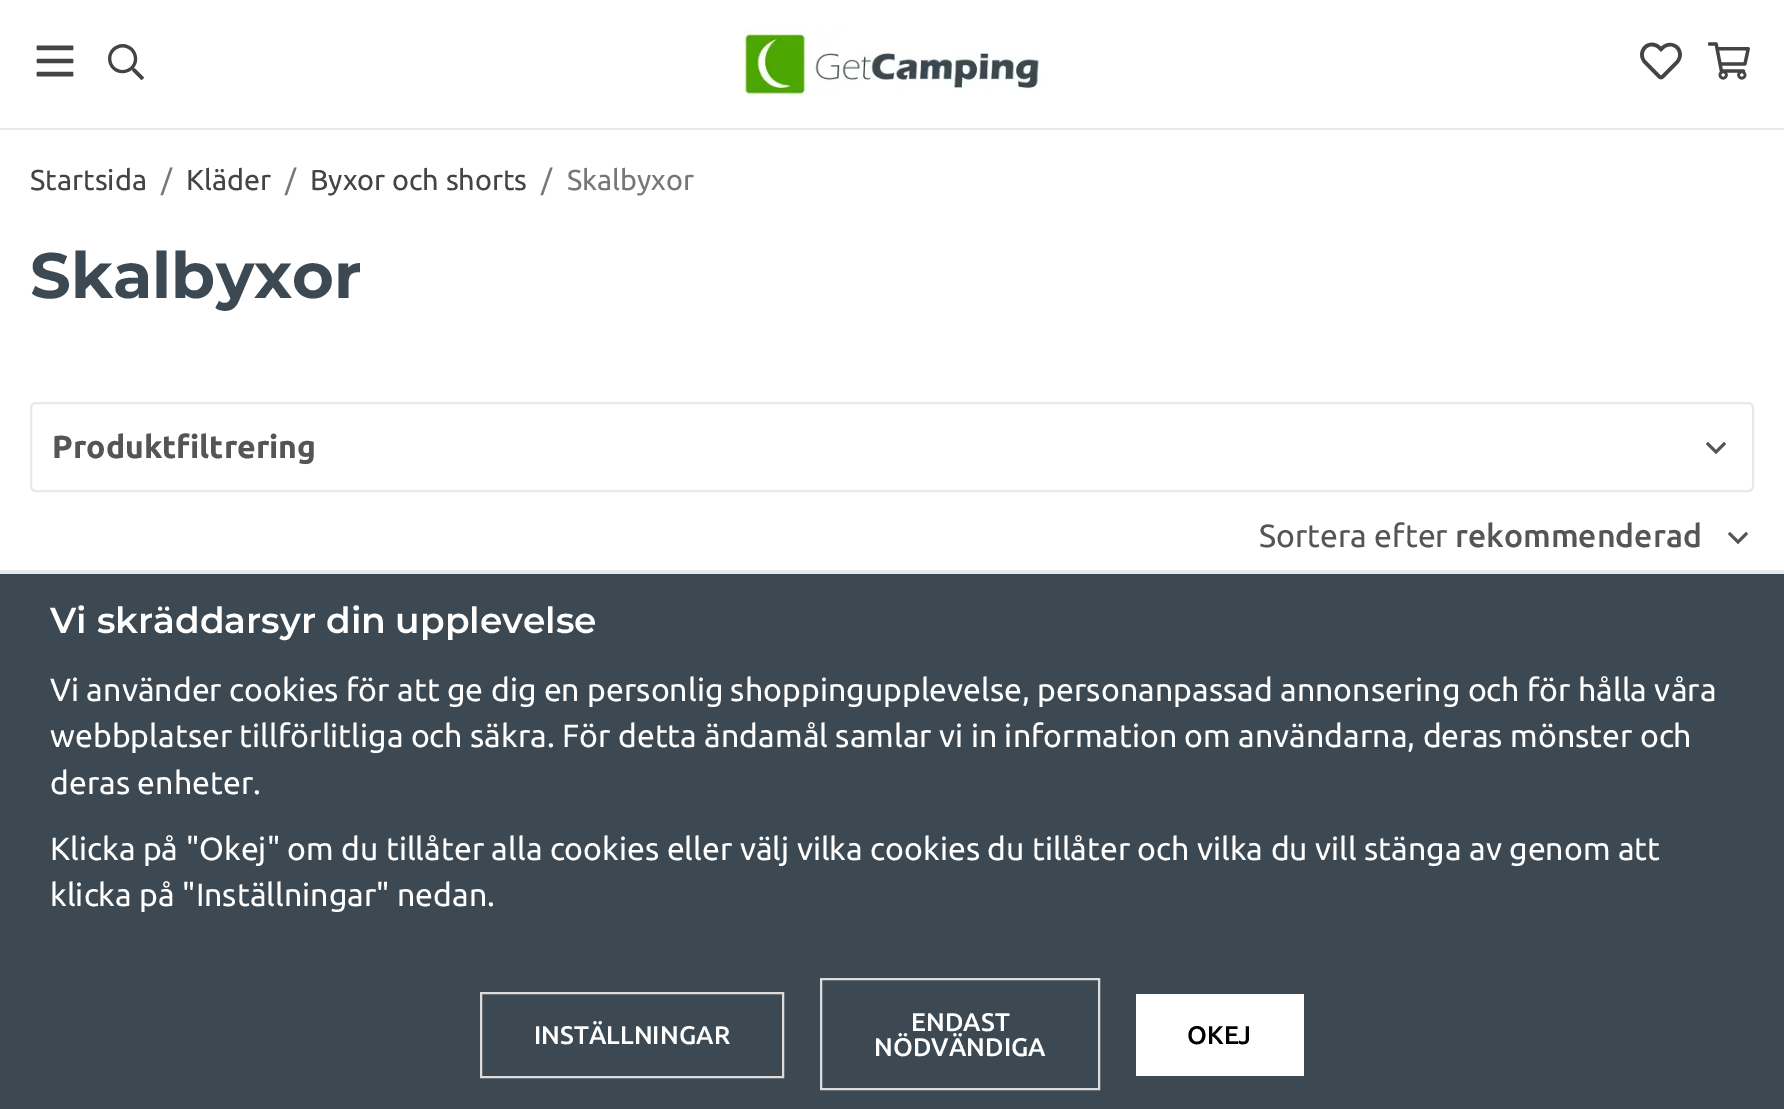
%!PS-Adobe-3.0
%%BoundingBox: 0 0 1784 1109
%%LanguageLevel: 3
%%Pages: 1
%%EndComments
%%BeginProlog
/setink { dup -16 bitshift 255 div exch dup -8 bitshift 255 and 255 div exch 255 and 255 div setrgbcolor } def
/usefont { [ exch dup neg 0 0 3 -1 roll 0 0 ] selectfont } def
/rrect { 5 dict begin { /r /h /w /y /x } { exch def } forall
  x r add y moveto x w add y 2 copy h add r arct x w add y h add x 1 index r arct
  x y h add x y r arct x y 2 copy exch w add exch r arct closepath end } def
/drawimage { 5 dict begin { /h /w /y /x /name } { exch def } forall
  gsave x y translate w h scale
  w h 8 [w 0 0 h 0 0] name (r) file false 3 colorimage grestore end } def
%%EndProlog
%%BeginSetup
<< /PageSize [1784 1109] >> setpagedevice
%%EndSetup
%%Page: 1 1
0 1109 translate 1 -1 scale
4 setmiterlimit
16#FFFFFF setink
0 0 1784 1109 rectfill
16#E9E9E9 setink
0 128 1784 2 rectfill
(img1.raw) 36 45 38 32 drawimage
(img2.raw) 108 44 36 36 drawimage
(img3.raw) 744 28 297 68 drawimage
(img4.raw) 1640 42 42 38 drawimage
(img5.raw) 1708 42 42 38 drawimage
/Ubuntu-Regular 28.75 usefont
16#444444 setink
30 190 moveto (Startsida) show
16#777777 setink
161 190 moveto (/) show
16#444444 setink
186 190 moveto (Kläder) show
16#777777 setink
285 190 moveto (/) show
16#444444 setink
310 190 moveto (Byxor och shorts) show
16#777777 setink
541 190 moveto (/) show
567 190 moveto (Skalbyxor) show
/Montserrat-Bold 64 usefont
16#3D4952 setink
30 298 moveto (Skalbyxor) show
16#E9E9E9 setink
2 setlinewidth
31 403 1722 88 5 rrect stroke
/Ubuntu-Bold 32 usefont
16#555555 setink
52 458 moveto (Produktfiltrering) show
(img6.raw) 1706 442 20 12 drawimage
/Ubuntu-Regular 32 usefont
1259 547 moveto (Sortera efter) show
/Ubuntu-Medium 32 usefont
1455 547 moveto (rekommenderad) show
(img6.raw) 1728 532 20 12 drawimage
16#3C4952 setink
0 574 1784 535 rectfill
16#E9E9E9 setink
0 570 1784 4 rectfill
/Montserrat-SemiBold 36 usefont
16#FFFFFF setink
50 633 moveto (Vi skräddarsyr din upplevelse) show
/Ubuntu-Regular 32 usefont
[
    [(Vi använder cookies för att ge dig en personlig shoppingupplevelse, personanpassad annonsering och för hålla våra) 50 701]
    [(webbplatser tillförlitliga och säkra. För detta ändamål samlar vi in information om användarna, deras mönster och) 50 747]
    [(deras enheter.) 50 794]
    [(Klicka på "Okej" om du tillåter alla cookies eller välj vilka cookies du tillåter och vilka du vill stänga av genom att) 50 860]
    [(klicka på "Inställningar" nedan.) 50 906]
] { aload pop moveto show } forall
16#DCDCDC setink
481 993 302 84 rectstroke
/Ubuntu-Medium 25.5 usefont
16#FFFFFF setink
534 1044 moveto (INSTÄLLNINGAR) show
16#DCDCDC setink
821 979 278 110 rectstroke
16#FFFFFF setink
911 1031 moveto (ENDAST) show
874 1056 moveto (NÖDVÄNDIGA) show
1136 994 168 82 rectfill
16#000000 setink
1187 1044 moveto (OKEJ) show
showpage
%%EOF
